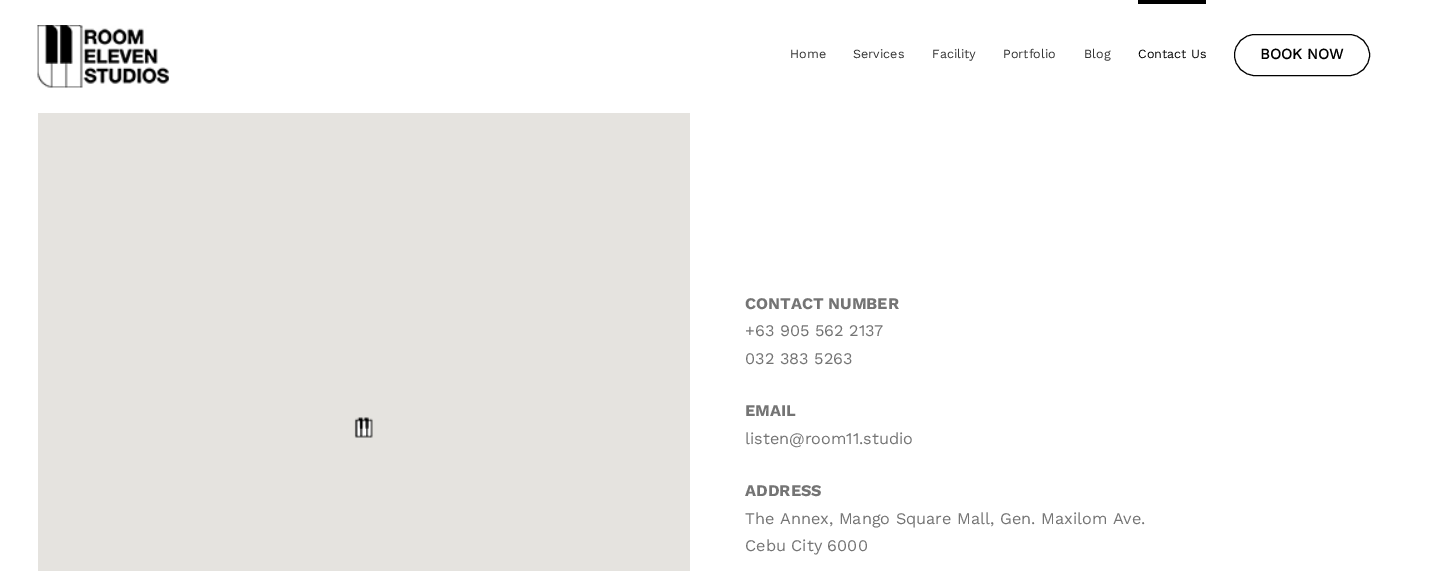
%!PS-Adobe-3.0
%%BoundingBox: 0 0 1435 571
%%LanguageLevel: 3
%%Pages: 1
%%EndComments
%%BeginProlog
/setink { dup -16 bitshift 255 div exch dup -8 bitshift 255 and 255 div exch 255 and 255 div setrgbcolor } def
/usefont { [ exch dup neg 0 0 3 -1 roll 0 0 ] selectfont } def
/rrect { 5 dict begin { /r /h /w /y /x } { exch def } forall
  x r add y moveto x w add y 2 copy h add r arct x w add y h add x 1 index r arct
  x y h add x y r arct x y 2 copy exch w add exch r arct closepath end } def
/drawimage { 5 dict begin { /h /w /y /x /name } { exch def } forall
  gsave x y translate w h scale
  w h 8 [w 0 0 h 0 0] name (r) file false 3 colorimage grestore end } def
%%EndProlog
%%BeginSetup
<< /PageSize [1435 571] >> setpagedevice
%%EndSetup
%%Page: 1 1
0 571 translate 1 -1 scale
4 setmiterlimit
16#FFFFFF setink
0 0 1435 571 rectfill
(img1.raw) 37 25 132 63 drawimage
/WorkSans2-Regular 12.5 usefont
16#333333 setink
[
    [(Home) 790 58]
    [(Services) 853 58]
    [(Facility) 932 58]
    [(Portfolio) 1003 58]
    [(Blog) 1084 58]
] { aload pop moveto show } forall
16#000000 setink
1138 0 68 4 rectfill
1138 58 moveto (Contact Us) show
1234.5 34.5 135 41 20.5 rrect stroke
/WorkSans2-Bold 15 usefont
1260 59 moveto (BOOK NOW) show
16#E5E3DF setink
38 113 652 458 rectfill
(img2.raw) 354 417 19 21 drawimage
/WorkSans-Bold 16.25 usefont
16#747474 setink
745 309 moveto (CONTACT NUMBER) show
/WorkSans-Regular 16.25 usefont
745 336 moveto (+63 905 562 2137) show
745 364 moveto (032 383 5263) show
/WorkSans-Bold 16.25 usefont
745 416 moveto (EMAIL) show
/WorkSans-Regular 16.25 usefont
745 444 moveto (listen@room11.studio) show
/WorkSans-Bold 16.25 usefont
745 496 moveto (ADDRESS) show
/WorkSans-Regular 16.25 usefont
745 524 moveto (The Annex, Mango Square Mall, Gen. Maxilom Ave.) show
745 551 moveto (Cebu City 6000) show
showpage
%%EOF
